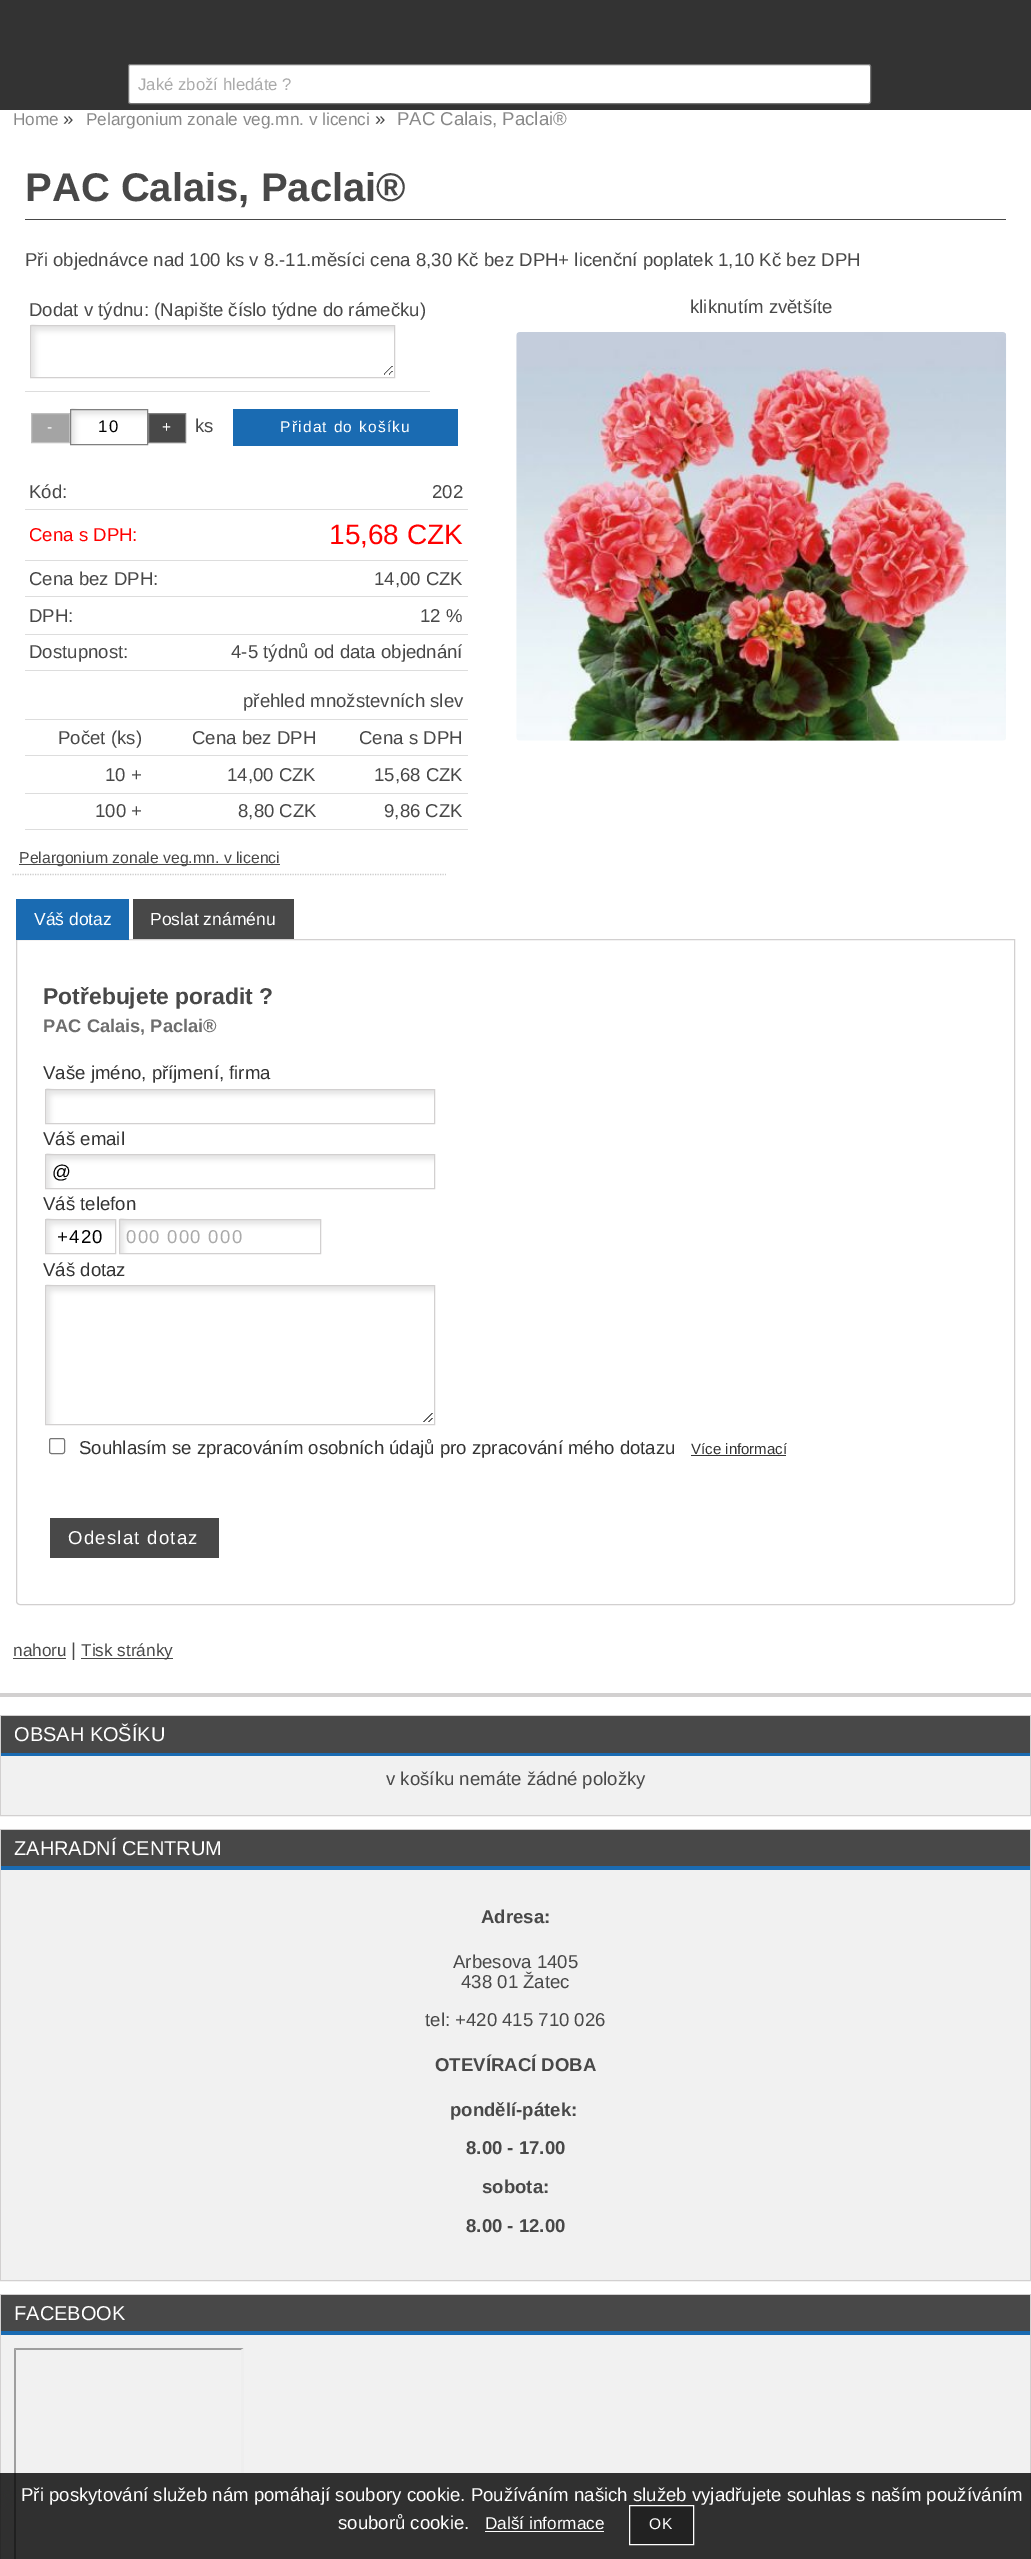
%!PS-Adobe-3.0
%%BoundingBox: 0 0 1031 2559
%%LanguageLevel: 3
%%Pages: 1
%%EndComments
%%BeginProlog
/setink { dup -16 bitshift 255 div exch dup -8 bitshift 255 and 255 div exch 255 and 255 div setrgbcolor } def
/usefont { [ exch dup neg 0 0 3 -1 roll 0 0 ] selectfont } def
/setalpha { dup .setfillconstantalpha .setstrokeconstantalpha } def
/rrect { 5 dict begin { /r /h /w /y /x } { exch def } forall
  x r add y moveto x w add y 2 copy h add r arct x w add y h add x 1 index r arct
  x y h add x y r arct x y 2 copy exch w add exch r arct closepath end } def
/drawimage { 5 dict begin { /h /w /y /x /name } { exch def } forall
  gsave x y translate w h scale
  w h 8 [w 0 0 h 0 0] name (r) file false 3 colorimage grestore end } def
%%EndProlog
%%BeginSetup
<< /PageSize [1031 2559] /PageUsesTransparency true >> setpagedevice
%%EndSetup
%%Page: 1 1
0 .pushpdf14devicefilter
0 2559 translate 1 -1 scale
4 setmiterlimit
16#FFFFFF setink
0 0 1031 2559 rectfill
16#333333 setink
0 0 1031 110 rectfill
16#FFFFFF setink
128.5 64.5 742 39 2 rrect gsave fill grestore
16#767676 setink
stroke
/LiberationSans-Regular 16.75 usefont
16#AAAAAA setink
138 90 moveto (Jaké zboží hledáte ?) show
/LiberationSans-Regular 17.2 usefont
16#888888 setink
13 125 moveto (Home) show
/LiberationSans-Regular 18.6 usefont
16#484848 setink
63 125 moveto (») show
/LiberationSans-Regular 17.2 usefont
16#888888 setink
86 125 moveto (Pelargonium zonale veg.mn. v licenci) show
/LiberationSans-Regular 18.6 usefont
16#484848 setink
375 125 moveto (») show
16#888888 setink
397 125 moveto (PAC Calais, Paclai®) show
16#484848 setink
25 219 981 1 rectfill
/LiberationSans-Bold 40 usefont
25 201 moveto (PAC Calais, Paclai®) show
/LiberationSans-Regular 18.6 usefont
25 266 moveto (Při objednávce nad 100 ks v 8.-11.měsíci cena 8,30 Kč bez DPH+ licenční poplatek 1,10 Kč bez DPH) show
16#DDDDDD setink
25 391 405 1 rectfill
16#484848 setink
29 316 moveto (Dodat v týdnu: \(Napište číslo týdne do rámečku\)) show
(img1.raw) 30 324 365 53 drawimage
16#D2D0D0 setink
30.5 325.5 364 52 rectstroke
16#A4A4A4 setink
31.5 413.5 moveto 69.5 413.5 lineto 69.5 442.5 lineto 31.5 442.5 lineto closepath gsave fill grestore
16#C0C0C0 setink
stroke
/LiberationSans-Regular 15.5 usefont
16#FFFFFF setink
47 432 moveto 1.25 0 (-) ashow
(img2.raw) 70 408 78 36 drawimage
16#808080 setink
70.5 409.5 77 35 rectstroke
/LiberationSans-Regular 16.75 usefont
16#000000 setink
98 432 moveto 1.25 0 (10) ashow
16#484848 setink
148.5 413.5 moveto 185.5 413.5 lineto 185.5 442.5 lineto 148.5 442.5 lineto closepath gsave fill grestore
16#808080 setink
stroke
/LiberationSans-Regular 15.5 usefont
16#FFFFFF setink
162 432 moveto 1.25 0 (+) ashow
/LiberationSans-Regular 18.6 usefont
16#484848 setink
195 432 moveto (ks) show
16#1A6BB2 setink
233 409 225 37 rectfill
/LiberationSans-Regular 15.5 usefont
16#FFFFFF setink
280 432 moveto 1.25 0 (Přidat do košíku) ashow
/LiberationSans-Regular 18.6 usefont
16#484848 setink
690 313 moveto (kliknutím zvětšíte) show
(img3.raw) 516 332 491 409 drawimage
29 498 moveto (Kód:) show
16#DDDDDD setink
25 509 443 1 rectfill
16#484848 setink
432 498 moveto (202) show
16#FF0000 setink
29 541 moveto (Cena s DPH:) show
16#DDDDDD setink
25 560 443 1 rectfill
/LiberationSans-Regular 28 usefont
16#FF0000 setink
329 544 moveto (15,68 CZK) show
/LiberationSans-Regular 18.6 usefont
16#484848 setink
29 585 moveto (Cena bez DPH:) show
16#DDDDDD setink
25 596 443 1 rectfill
16#484848 setink
374 585 moveto (14,00 CZK) show
29 622 moveto (DPH:) show
16#DDDDDD setink
25 634 443 1 rectfill
16#484848 setink
420 622 moveto (12 %) show
29 658 moveto (Dostupnost:) show
16#DDDDDD setink
25 670 443 1 rectfill
16#484848 setink
231 658 moveto (4-5 týdnů od data objednání) show
16#DDDDDD setink
25 719 443 1 rectfill
16#484848 setink
[
    [(přehled množstevních slev) 243 707]
    [(Počet \(ks\)) 58 744]
    [(Cena bez DPH) 192 744]
] { aload pop moveto show } forall
16#DDDDDD setink
25 755 443 1 rectfill
16#484848 setink
[
    [(Cena s DPH) 359 744]
    [(10 +) 105 781]
    [(14,00 CZK) 227 781]
] { aload pop moveto show } forall
16#DDDDDD setink
25 793 443 1 rectfill
16#484848 setink
[
    [(15,68 CZK) 374 781]
    [(100 +) 95 817]
    [(8,80 CZK) 238 817]
] { aload pop moveto show } forall
16#DDDDDD setink
25 829 443 1 rectfill
16#484848 setink
384 817 moveto (9,86 CZK) show
16#CCCCCC setink
1.2 setlinewidth
[1.25 1.25] 0 setdash
12.5 874.5 moveto 446 874.5 lineto stroke
16#484848 setink
19 864 261 1 rectfill
/LiberationSans-Regular 15.8 usefont
19 863 moveto (Pelargonium zonale veg.mn. v licenci) show
16#D2D0D0 setink
1 setlinewidth
[] 0 setdash
16.5 939.5 moveto 1014.5 939.5 lineto 1014.5 1601 lineto 1014.5 1603 1013 1604.5 1011 1604.5 curveto 20 1604.5 lineto 18 1604.5 16.5 1603 16.5 1601 curveto closepath stroke
16#1A6BB2 setink
16 899 113 41 rectfill
/LiberationSans-Regular 17.5 usefont
16#FFFFFF setink
34 925 moveto (Váš dotaz) show
16#484848 setink
133 899 161 40 rectfill
16#FFFFFF setink
150 925 moveto (Poslat známénu) show
/LiberationSans-Bold 22.9 usefont
16#484848 setink
43 1004 moveto (Potřebujete poradit ?) show
/LiberationSans-Bold 18.25 usefont
16#6D6D6D setink
43 1032 moveto (PAC Calais, Paclai®) show
/LiberationSans-Regular 18.6 usefont
16#333333 setink
43 1079 moveto (Vaše jméno, příjmení, firma) show
(img4.raw) 45 1088 390 35 drawimage
16#D2D0D0 setink
45.5 1089.5 389 34 rectstroke
16#333333 setink
43 1145 moveto (Váš email) show
(img4.raw) 45 1153 390 35 drawimage
16#D2D0D0 setink
45.5 1154.5 389 34 rectstroke
16#000000 setink
52 1178 moveto 1.25 0 (@) ashow
16#333333 setink
43 1210 moveto (Váš telefon) show
(img5.raw) 45 1218 72 36 drawimage
16#D2D0D0 setink
45.5 1219.5 70 34 rectstroke
16#000000 setink
57 1243 moveto 1.25 0 (+420) ashow
(img6.raw) 118 1218 204 36 drawimage
16#D2D0D0 setink
119.5 1219.5 201 34 rectstroke
16#AAAAAA setink
126 1243 moveto 1.25 0 (000 000 000) ashow
16#333333 setink
43 1276 moveto (Váš dotaz) show
(img7.raw) 45 1284 390 140 drawimage
16#D2D0D0 setink
45.5 1285.5 389 139 rectstroke
16#767676 setink
49.5 1438.5 15 15 2 rrect stroke
16#333333 setink
79 1454 moveto (Souhlasím se zpracováním osobních údajů pro zpracování mého dotazu) show
/LiberationSans-Regular 15 usefont
691 1454 moveto (Více informací) show
691 1455 95 1 rectfill
16#484848 setink
50 1518 169 40 rectfill
/LiberationSans-Regular 18.6 usefont
16#FFFFFF setink
68 1544 moveto 1.25 0 (Odeslat dotaz) ashow
/LiberationSans-Regular 17.2 usefont
16#484848 setink
13 1656 moveto (nahoru) show
13 1658 53 1 rectfill
/LiberationSans-Regular 18.6 usefont
71 1656 moveto (|) show
81 1658 92 1 rectfill
/LiberationSans-Regular 17.2 usefont
81 1656 moveto (Tisk stránky) show
16#D2D0D0 setink
0 1693 1031 4 rectfill
0.5 1715.5 1030 100 rectstroke
16#484848 setink
1 1716 1029 37 rectfill
16#1A6BB2 setink
1 1753 1029 3 rectfill
/LiberationSans-Regular 20 usefont
16#FFFFFF setink
14 1741 moveto (OBSAH KOŠÍKU) show
16#F1F1F1 setink
1 1756 1029 59 rectfill
/LiberationSans-Regular 18.6 usefont
16#484848 setink
386 1785 moveto (v košíku nemáte žádné položky) show
16#D2D0D0 setink
0.5 1829.5 1030 451 rectstroke
16#484848 setink
1 1830 1029 36 rectfill
16#1A6BB2 setink
1 1866 1029 4 rectfill
/LiberationSans-Regular 20 usefont
16#FFFFFF setink
14 1855 moveto (ZAHRADNÍ CENTRUM) show
16#F1F1F1 setink
1 1870 1029 410 rectfill
/LiberationSans-Bold 18.6 usefont
16#484848 setink
481 1923 moveto (Adresa:) show
/LiberationSans-Regular 18.6 usefont
[
    [(Arbesova 1405) 453 1968]
    [(438 01 Žatec) 461 1988]
    [(tel: +420 415 710 026) 425 2026]
] { aload pop moveto show } forall
/LiberationSans-Bold 18.6 usefont
[
    [(OTEVÍRACÍ DOBA) 435 2071]
    [(pondělí-pátek:) 450 2116]
    [(8.00 - 17.00) 466 2154]
    [(sobota:) 482 2193]
    [(8.00 - 12.00) 466 2232]
] { aload pop moveto show } forall
16#D2D0D0 setink
0.5 2294.5 1030 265 rectstroke
16#484848 setink
1 2295 1029 36 rectfill
16#1A6BB2 setink
1 2331 1029 4 rectfill
/LiberationSans-Regular 20 usefont
16#FFFFFF setink
14 2320 moveto (FACEBOOK) show
16#F1F1F1 setink
1 2335 1029 224 rectfill
16#9F9F9F setink
14 2348 moveto 244 2348 lineto 241 2350 lineto 16 2350 lineto closepath fill
14 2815 moveto 14 2348 lineto 16 2350 lineto 16 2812 lineto closepath fill
16#EEEEEE setink
244 2348 moveto 244 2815 lineto 241 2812 lineto 241 2350 lineto closepath fill
0.8 setalpha
16#000000 setink
0 2473 1031 86 rectfill
/LiberationSans-Regular 18.6 usefont
1 setalpha
16#FFFFFF setink
21 2501 moveto (Při poskytování služeb nám pomáhají soubory cookie. Používáním našich služeb vyjadřujete souhlas s naším používáním) show
338 2529 moveto (souborů cookie.) show
/LiberationSans-Regular 17.2 usefont
485 2529 moveto (Další informace) show
485 2531 119 1 rectfill
16#222222 setink
629.5 2505.5 moveto 693.5 2505.5 lineto 693.5 2544.5 lineto 629.5 2544.5 lineto closepath gsave fill grestore
16#FFFFFF setink
stroke
/LiberationSans-Regular 15.5 usefont
649 2529 moveto 1.25 0 (OK) ashow
.poppdf14devicefilter showpage
%%EOF
